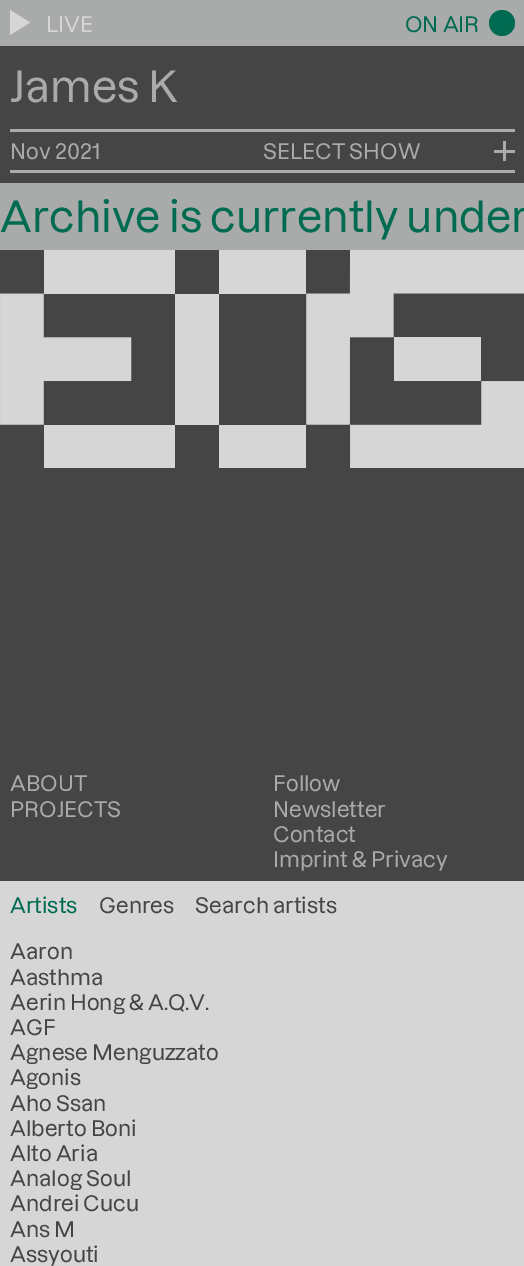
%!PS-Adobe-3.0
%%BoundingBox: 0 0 524 1266
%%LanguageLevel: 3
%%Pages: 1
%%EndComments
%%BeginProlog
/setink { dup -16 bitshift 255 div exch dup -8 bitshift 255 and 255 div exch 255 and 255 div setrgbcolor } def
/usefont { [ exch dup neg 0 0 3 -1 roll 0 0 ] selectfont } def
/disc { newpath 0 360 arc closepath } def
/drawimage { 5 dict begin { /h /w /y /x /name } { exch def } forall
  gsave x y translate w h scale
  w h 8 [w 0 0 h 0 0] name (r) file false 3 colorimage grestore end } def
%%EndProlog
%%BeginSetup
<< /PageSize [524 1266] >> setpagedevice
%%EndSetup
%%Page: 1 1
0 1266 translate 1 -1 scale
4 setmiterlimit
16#454545 setink
0 0 524 1266 rectfill
16#A9ABAB setink
0 0 524 46 rectfill
16#D6D6D6 setink
10 10 moveto 10 35 lineto 30 22.5 lineto closepath fill
/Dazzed-Medium 21 usefont
46 32 moveto (LIVE) show
16#006B50 setink
405 32 moveto (ON AIR) show
502 23 13 disc fill
/Dazzed-Medium 42 usefont
16#A9ABAB setink
10 102 moveto (James K) show
10 129 505 3 rectfill
10 170 505 3 rectfill
/Dazzed-Medium 21 usefont
10 159 moveto (Nov 2021) show
263 159 moveto (SELECT SHOW) show
[
    [494 150 21 3 16#A9ABAB]
    [503 141 3 20 16#A9ABAB]
    [0 183 524 67 16#A9ABAB]
] { aload pop setink rectfill } forall
/Dazzed-Medium 42 usefont
16#006B50 setink
0 232 moveto (Archive is currently under) show
(img1.raw) 0 250 524 218 drawimage
/Dazzed-Medium 21 usefont
16#A9ABAB setink
[
    [(ABOUT) 10 791]
    [(PROJECTS) 10 817]
    [(Follow) 273 791]
    [(Newsletter) 273 817]
    [(Contact) 273 842]
    [(Imprint & Privacy) 273 867]
] { aload pop moveto show } forall
16#D6D6D6 setink
0 881 524 385 rectfill
16#006B50 setink
10 913 moveto (Artists) show
16#454545 setink
[
    [(Genres) 99 913]
    [(Search artists) 195 913]
    [(Aaron) 10 959]
    [(Aasthma) 10 985]
    [(Aerin Hong & A.Q.V.) 10 1010]
    [(AGF) 10 1035]
    [(Agnese Menguzzato) 10 1060]
    [(Agonis) 10 1085]
    [(Aho Ssan) 10 1111]
    [(Alberto Boni) 10 1136]
    [(Alto Aria) 10 1161]
    [(Analog Soul) 10 1186]
    [(Andrei Cucu) 10 1211]
    [(Ans M) 10 1237]
    [(Assyouti) 10 1262]
] { aload pop moveto show } forall
showpage
%%EOF
